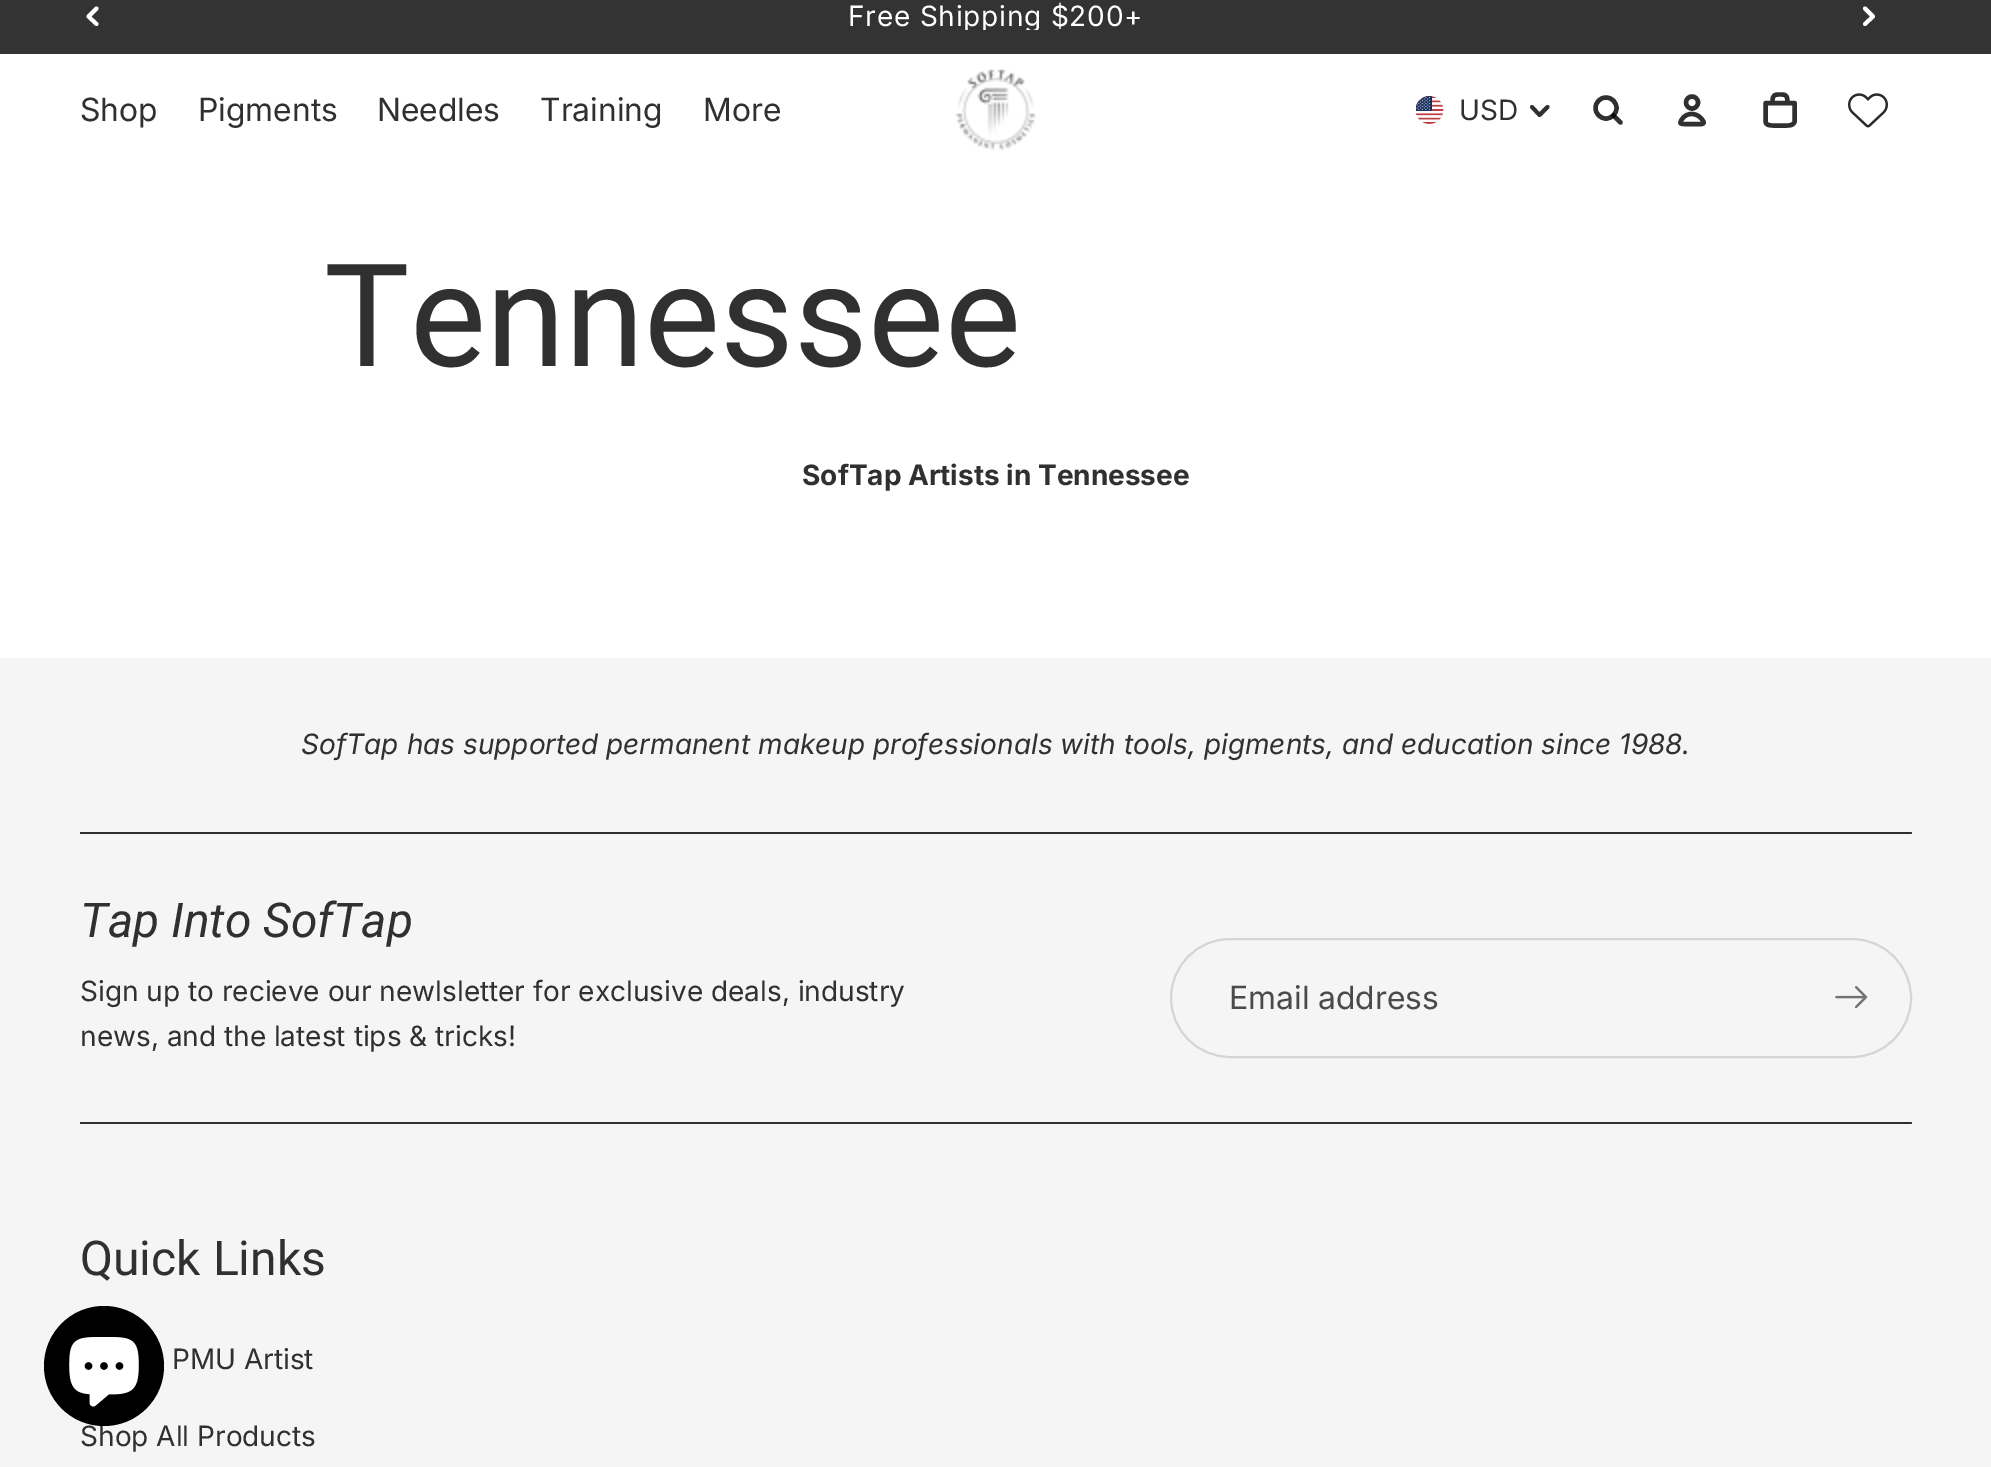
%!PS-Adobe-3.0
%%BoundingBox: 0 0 1991 1467
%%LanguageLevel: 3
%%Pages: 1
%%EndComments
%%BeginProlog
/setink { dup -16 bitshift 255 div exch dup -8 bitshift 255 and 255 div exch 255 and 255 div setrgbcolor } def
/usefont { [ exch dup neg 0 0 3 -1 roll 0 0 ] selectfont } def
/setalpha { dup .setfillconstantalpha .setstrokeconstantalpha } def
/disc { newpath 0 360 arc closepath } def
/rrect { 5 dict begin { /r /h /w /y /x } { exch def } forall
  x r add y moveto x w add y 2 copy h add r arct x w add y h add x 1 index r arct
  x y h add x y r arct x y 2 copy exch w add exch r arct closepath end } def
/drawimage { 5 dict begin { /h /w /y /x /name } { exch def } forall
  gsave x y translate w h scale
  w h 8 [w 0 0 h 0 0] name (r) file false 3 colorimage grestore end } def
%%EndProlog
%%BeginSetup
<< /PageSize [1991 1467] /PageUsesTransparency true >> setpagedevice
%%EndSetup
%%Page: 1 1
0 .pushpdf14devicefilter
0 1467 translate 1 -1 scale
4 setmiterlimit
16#FFFFFF setink
0 0 1991 1467 rectfill
16#333333 setink
0 0 1991 54 rectfill
gsave
316 2 1360 28 rectclip
/Inter-Regular 28 usefont
16#FFFFFF setink
848 26 moveto 0.8 0 (Free Shipping $200+) ashow
grestore
16#FFFFFF setink
3.9 setlinewidth
1 setlinecap
1 setlinejoin
96.5 8.5 moveto 88.5 16.5 lineto 96.5 24 lineto stroke
1865 8.5 moveto 1873 16.5 lineto 1865 24 lineto stroke
/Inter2-Regular 32 usefont
16#303030 setink
[
    [(Shop) 80 121]
    [(Pigments) 198 121]
    [(Needles) 377 121]
    [(Training) 540 121]
    [(More) 703 121]
] { aload pop moveto show } forall
(img1.raw) 955 69 81 82 drawimage
(img2.raw) 1416 96 28 28 drawimage
/Inter-Regular 28 usefont
1459 120 moveto (USD) show
1547.5 107 moveto 1539.5 115 lineto 1532 107 lineto stroke
4.4 setlinewidth
0 setlinecap
0 setlinejoin
1606 108 10.5 disc stroke
0.81 setalpha
16#000000 setink
1 setlinecap
1 setlinejoin
1613.5 115.5 moveto 1620.5 122.5 lineto stroke
1 setalpha
16#303030 setink
0 setlinecap
0 setlinejoin
1692 102.5 6 disc stroke
1 setlinecap
1 setlinejoin
1681.5 120 moveto 1679 124 1680.5 124 1685 124 curveto 1699 124 lineto 1699.5 124 1703 124.5 1703.5 123 curveto 1704 122.5 1703.5 121.5 1703 121 curveto 1698.5 112.5 1686.5 111 1681.5 120 curveto stroke
1765.5 103 moveto 1794.5 103 lineto 1794.5 122 lineto 1793 125.5 1789.5 125.5 1786.5 125.5 curveto 1773.5 125.5 lineto 1770 125.5 1765.5 125.5 1765.5 121 curveto closepath 1777.5 94.5 moveto 1785.5 94.5 1787.5 94 1787.5 103 curveto 1772.5 103 lineto 1772.5 99.5 1772 94.5 1777.5 94.5 curveto stroke
(img3.raw) 1848 93 40 35 drawimage
/Roboto-Regular 143.5 usefont
324 366 moveto (Tennessee) show
/Inter-Bold 28 usefont
802 485 moveto (SofTap Artists in Tennessee) show
16#F5F5F5 setink
0 658 1991 809 rectfill
/Inter-Italic 28 usefont
16#303030 setink
301 754 moveto (SofTap has supported permanent makeup professionals with tools, pigments, and education since 1988.) show
16#2F2F2F setink
1912 832 moveto 1912 834 lineto 1910 832 lineto closepath fill
0.81 setalpha
16#000000 setink
1912 834 moveto 80 834 lineto 80 832 lineto 1910 832 lineto closepath fill
/Roboto-Italic 48 usefont
1 setalpha
16#303030 setink
80 937 moveto (Tap Into SofTap) show
/Inter-Regular 28 usefont
80 1001 moveto (Sign up to recieve our newlsletter for exclusive deals, industry) show
80 1046 moveto (news, and the latest tips & tricks!) show
16#D5D5D5 setink
2 setlinewidth
0 setlinecap
0 setlinejoin
1171 939 740 118 59 rrect stroke
/Inter2-Regular 32 usefont
16#4A4A4A setink
1229 1009 moveto (Email address) show
(img4.raw) 1835 986 33 23 drawimage
16#2F2F2F setink
1912 1122 moveto 1912 1124 lineto 1910 1122 lineto closepath fill
0.81 setalpha
16#000000 setink
1912 1124 moveto 80 1124 lineto 80 1122 lineto 1910 1122 lineto closepath fill
/Roboto-Regular 48 usefont
1 setalpha
16#303030 setink
80 1275 moveto (Quick Links) show
/Inter-Regular 28 usefont
172 1369 moveto (PMU Artist) show
80 1446 moveto (Shop All Products) show
16#000000 setink
104 1366 60 disc fill
(img5.raw) 69 1337 70 70 drawimage
.poppdf14devicefilter showpage
%%EOF
